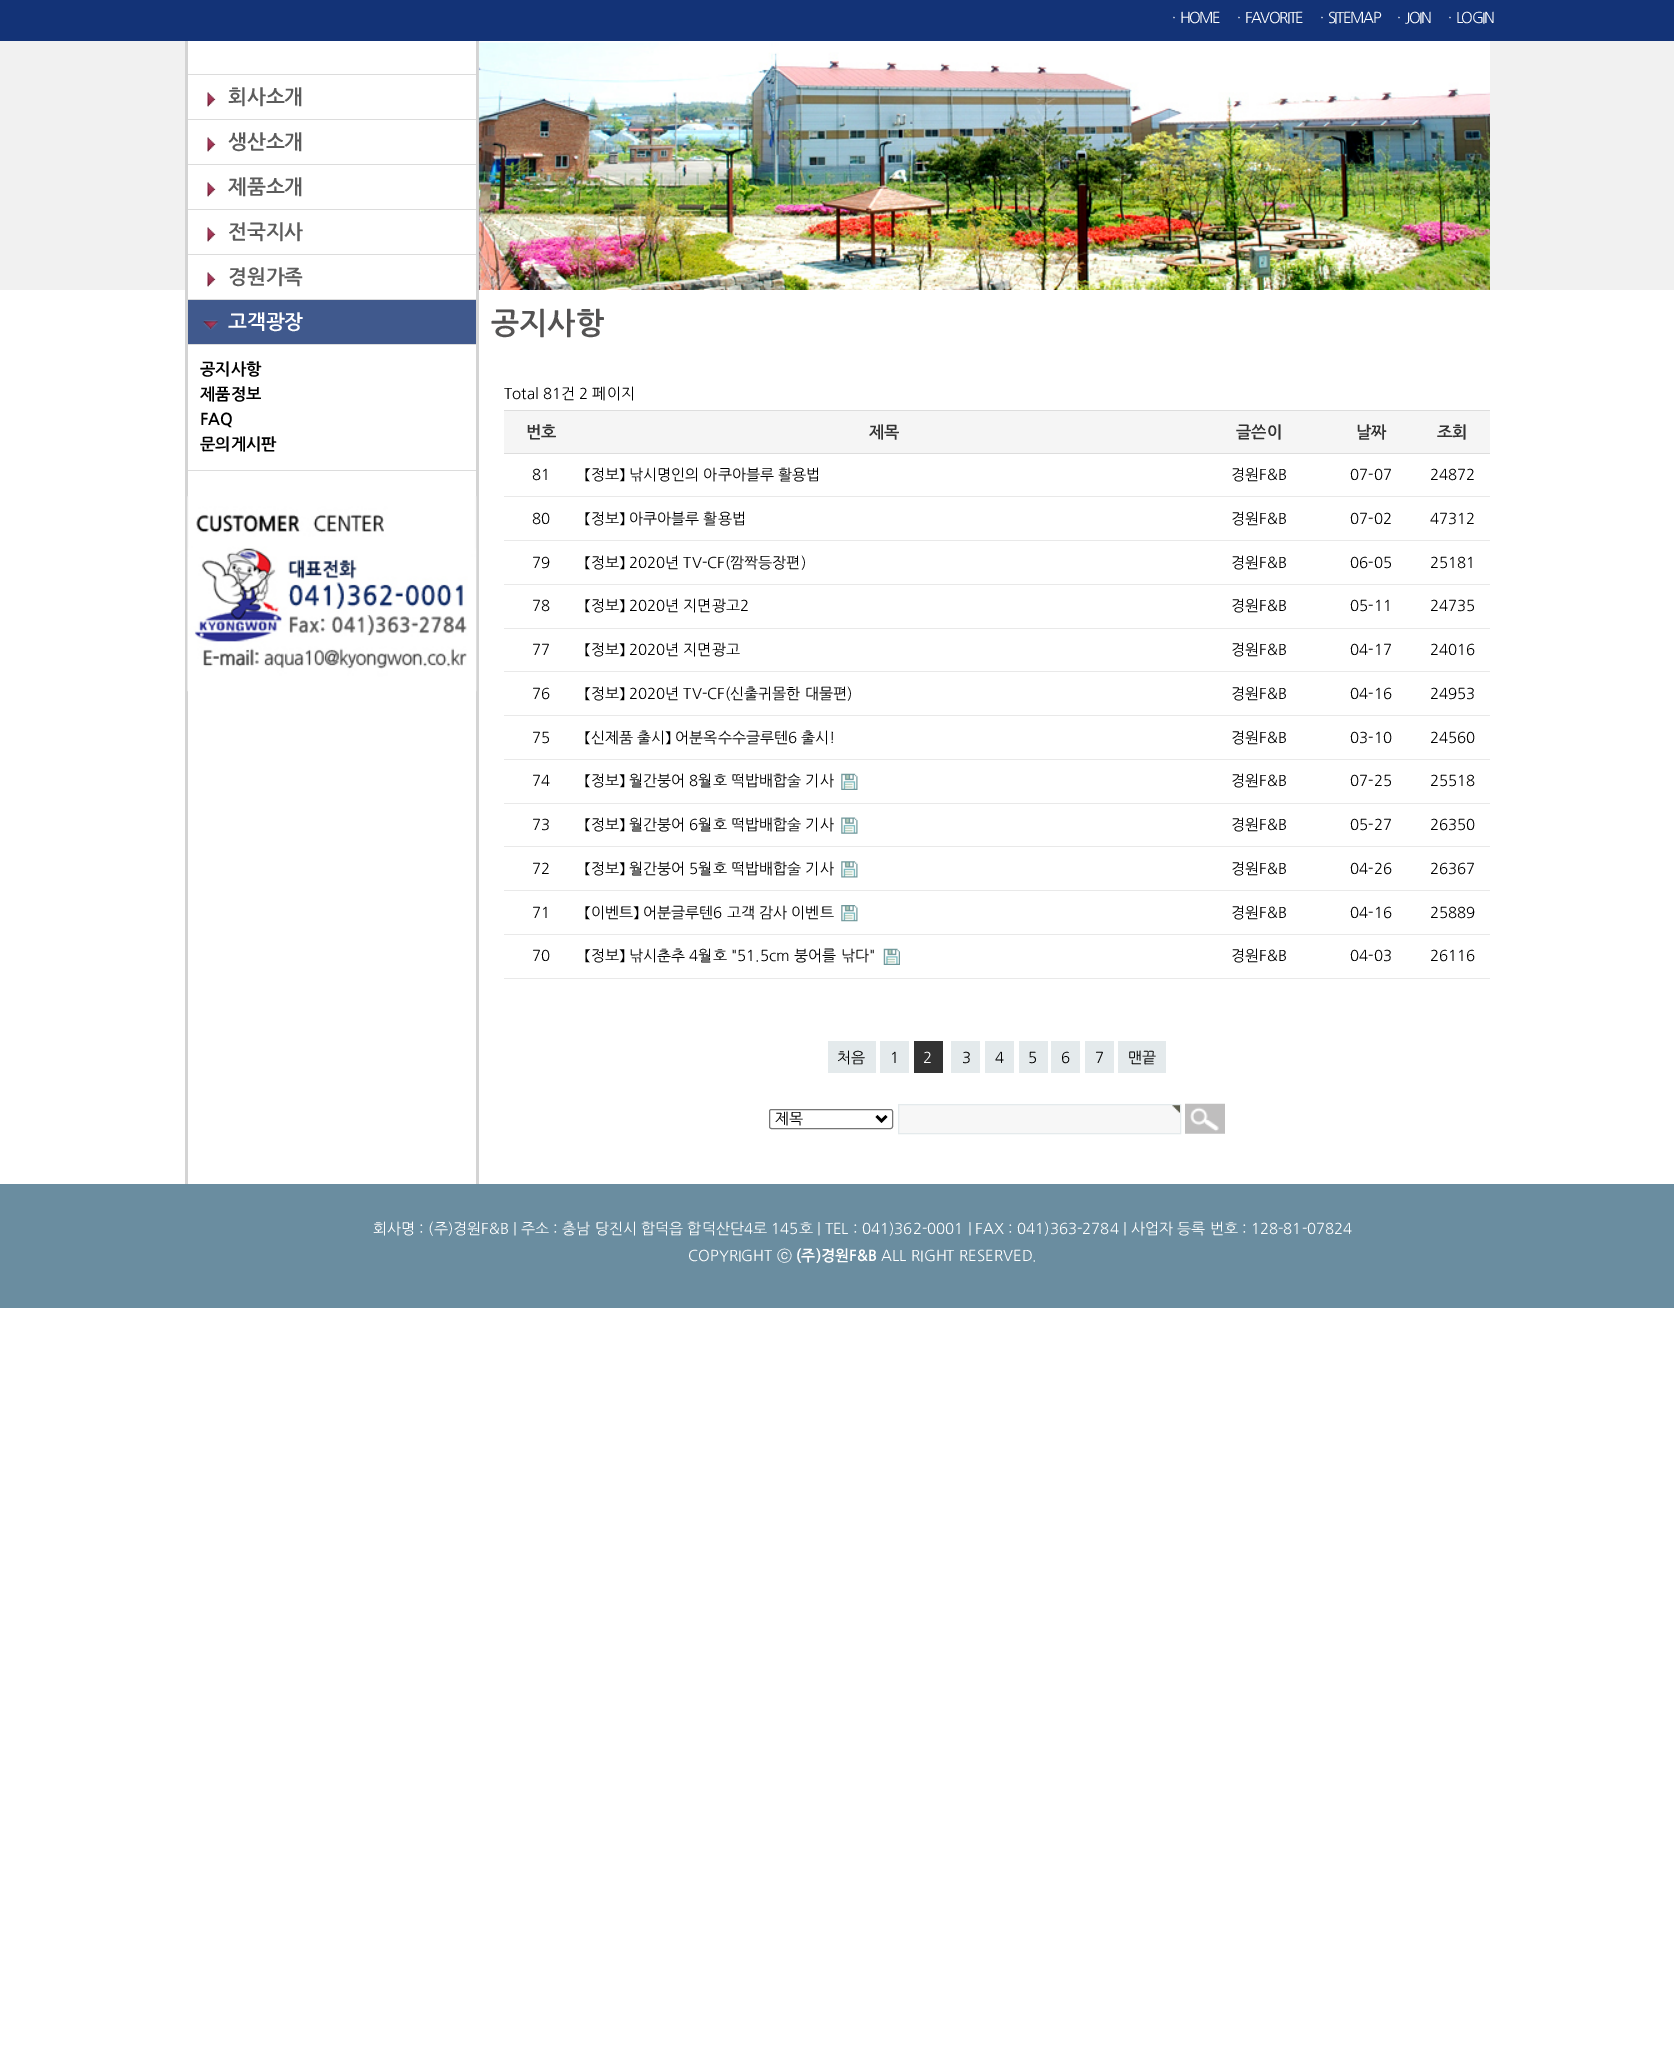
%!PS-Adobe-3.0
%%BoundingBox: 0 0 1674 2057
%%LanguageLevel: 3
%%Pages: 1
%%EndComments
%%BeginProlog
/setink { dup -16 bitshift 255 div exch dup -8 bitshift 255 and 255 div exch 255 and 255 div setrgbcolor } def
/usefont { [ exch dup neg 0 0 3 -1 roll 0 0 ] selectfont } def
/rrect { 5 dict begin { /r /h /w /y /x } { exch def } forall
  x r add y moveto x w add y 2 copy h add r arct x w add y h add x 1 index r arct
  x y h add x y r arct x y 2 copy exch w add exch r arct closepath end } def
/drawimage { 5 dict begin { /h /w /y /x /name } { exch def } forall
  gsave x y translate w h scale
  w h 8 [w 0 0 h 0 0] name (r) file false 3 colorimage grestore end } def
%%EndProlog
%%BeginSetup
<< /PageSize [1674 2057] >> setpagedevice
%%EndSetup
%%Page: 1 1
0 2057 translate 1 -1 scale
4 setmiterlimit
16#FFFFFF setink
0 0 1674 2057 rectfill
16#F1F1F1 setink
0 41 1674 249 rectfill
16#133377 setink
0 0 1674 41 rectfill
/NanumGothic-Regular 15 usefont
16#FFFFFF setink
1167 23 moveto -1.5 0 (ㆍHOME) ashow
1232 23 moveto -1.5 0 (ㆍFAVORITE) ashow
1315 23 moveto -1.5 0 (ㆍSITEMAP) ashow
1392 23 moveto -1.5 0 (ㆍJOIN) ashow
1443 23 moveto -1.5 0 (ㆍLOGIN) ashow
[
    [185 41 3 1143 16#D4D4D4]
    [188 41 288 249 16#FFFFFF]
    [188 74 288 1 16#DCDCDC]
    [188 119 288 1 16#DCDCDC]
] { aload pop setink rectfill } forall
(img1.raw) 207 92 9 15 drawimage
/NanumGothic-Bold 20 usefont
16#5C5C5C setink
228 104 moveto (회사소개) show
16#DCDCDC setink
188 164 288 1 rectfill
(img1.raw) 207 137 9 15 drawimage
16#5C5C5C setink
228 149 moveto (생산소개) show
16#DCDCDC setink
188 209 288 1 rectfill
(img1.raw) 207 182 9 15 drawimage
16#5C5C5C setink
228 194 moveto (제품소개) show
16#DCDCDC setink
188 254 288 1 rectfill
(img1.raw) 207 227 9 15 drawimage
16#5C5C5C setink
228 239 moveto (전국지사) show
16#DCDCDC setink
188 299 288 1 rectfill
(img1.raw) 207 272 9 15 drawimage
16#5C5C5C setink
228 284 moveto (경원가족) show
16#40598D setink
188 300 288 44 rectfill
16#DCDCDC setink
188 344 288 1 rectfill
(img2.raw) 203 320 15 10 drawimage
16#FFFFFF setink
228 329 moveto (고객광장) show
16#DCDCDC setink
188 470 288 1 rectfill
/NanumGothic-Bold 16.25 usefont
16#000000 setink
[
    [(공지사항) 200 375]
    [(제품정보) 200 400]
    [(FAQ) 200 425]
    [(문의게시판) 200 450]
] { aload pop moveto show } forall
16#D4D4D4 setink
476 41 3 1143 rectfill
(img3.raw) 187 496 290 196 drawimage
16#FFFFFF setink
479 41 1011 249 rectfill
(img4.raw) 478 42 1012 248 drawimage
/NanumGothic-Bold 30 usefont
16#545353 setink
491 334 moveto (공지사항) show
/NanumGothic-Regular 15 usefont
16#000000 setink
504 399 moveto (Total 81건 2 페이지) show
16#F5F5F5 setink
504 411 986 42 rectfill
/NanumGothic-Bold 16.25 usefont
16#333333 setink
[
    [(번호) 526 438]
    [(제목) 869 438]
    [(글쓴이) 1236 438]
    [(날짜) 1356 438]
] { aload pop moveto show } forall
16#DDDDDD setink
504 410 986 1 rectfill
504 453 986 1 rectfill
16#333333 setink
1437 438 moveto (조회) show
/NanumGothic-Regular 15 usefont
16#000000 setink
[
    [(81) 532 480]
    [(【정보】 낚시명인의 아쿠아블루 활용법) 585 480]
    [(경원F&B) 1231 480]
    [(07-07) 1350 480]
    [(24872) 1430 480]
    [(80) 532 524]
    [(【정보】 아쿠아블루 활용법) 585 524]
    [(경원F&B) 1231 524]
    [(07-02) 1350 524]
] { aload pop moveto show } forall
16#E9E9E9 setink
504 496 986 1 rectfill
16#000000 setink
[
    [(47312) 1430 524]
    [(79) 532 568]
    [(【정보】 2020년 TV-CF\(깜짝등장편\)) 585 568]
    [(경원F&B) 1231 568]
    [(06-05) 1350 568]
] { aload pop moveto show } forall
16#E9E9E9 setink
504 540 986 1 rectfill
16#000000 setink
[
    [(25181) 1430 568]
    [(78) 532 611]
    [(【정보】 2020년 지면광고2) 585 611]
    [(경원F&B) 1231 611]
    [(05-11) 1350 611]
] { aload pop moveto show } forall
16#E9E9E9 setink
504 584 986 1 rectfill
16#000000 setink
[
    [(24735) 1430 611]
    [(77) 532 655]
    [(【정보】 2020년 지면광고) 585 655]
    [(경원F&B) 1231 655]
    [(04-17) 1350 655]
] { aload pop moveto show } forall
16#E9E9E9 setink
504 628 986 1 rectfill
16#000000 setink
[
    [(24016) 1430 655]
    [(76) 532 699]
    [(【정보】 2020년 TV-CF\(신출귀몰한 대물편\)) 585 699]
    [(경원F&B) 1231 699]
    [(04-16) 1350 699]
] { aload pop moveto show } forall
16#E9E9E9 setink
504 671 986 1 rectfill
16#000000 setink
[
    [(24953) 1430 699]
    [(75) 532 743]
    [(【신제품 출시】 어분옥수수글루텐6 출시!) 585 743]
    [(경원F&B) 1231 743]
    [(03-10) 1350 743]
] { aload pop moveto show } forall
16#E9E9E9 setink
504 715 986 1 rectfill
16#000000 setink
[
    [(24560) 1430 743]
    [(74) 532 786]
    [(【정보】 월간붕어 8월호 떡밥배합술 기사) 585 786]
] { aload pop moveto show } forall
(img5.raw) 841 773 17 17 drawimage
1231 786 moveto (경원F&B) show
1350 786 moveto (07-25) show
16#E9E9E9 setink
504 759 986 1 rectfill
16#000000 setink
[
    [(25518) 1430 786]
    [(73) 532 830]
    [(【정보】 월간붕어 6월호 떡밥배합술 기사) 585 830]
] { aload pop moveto show } forall
(img6.raw) 841 817 17 17 drawimage
1231 830 moveto (경원F&B) show
1350 830 moveto (05-27) show
16#E9E9E9 setink
504 803 986 1 rectfill
16#000000 setink
[
    [(26350) 1430 830]
    [(72) 532 874]
    [(【정보】 월간붕어 5월호 떡밥배합술 기사) 585 874]
] { aload pop moveto show } forall
(img7.raw) 841 861 17 17 drawimage
1231 874 moveto (경원F&B) show
1350 874 moveto (04-26) show
16#E9E9E9 setink
504 846 986 1 rectfill
16#000000 setink
[
    [(26367) 1430 874]
    [(71) 532 918]
    [(【이벤트】 어분글루텐6 고객 감사 이벤트) 585 918]
] { aload pop moveto show } forall
(img8.raw) 841 905 17 17 drawimage
1231 918 moveto (경원F&B) show
1350 918 moveto (04-16) show
16#E9E9E9 setink
504 890 986 1 rectfill
16#000000 setink
[
    [(25889) 1430 918]
    [(70) 532 961]
    [(【정보】 낚시춘추 4월호 "51.5cm 붕어를 낚다") 585 961]
] { aload pop moveto show } forall
(img9.raw) 883 948 17 17 drawimage
1231 961 moveto (경원F&B) show
1350 961 moveto (04-03) show
16#E9E9E9 setink
504 934 986 1 rectfill
504 978 986 1 rectfill
16#000000 setink
1430 961 moveto (26116) show
16#E4EAEC setink
828 1041 48 32 rectfill
16#000000 setink
837 1063 moveto (처음) show
16#E4EAEC setink
880 1041 29 32 rectfill
16#000000 setink
890 1063 moveto (1) show
16#333333 setink
914 1041 29 32 rectfill
16#FFFFFF setink
923 1063 moveto (2) show
16#E4EAEC setink
951 1041 29 32 rectfill
16#000000 setink
962 1063 moveto (3) show
16#E4EAEC setink
985 1041 29 32 rectfill
16#000000 setink
995 1063 moveto (4) show
16#E4EAEC setink
1019 1041 29 32 rectfill
16#000000 setink
1028 1063 moveto (5) show
16#E4EAEC setink
1051 1041 29 32 rectfill
16#000000 setink
1061 1063 moveto (6) show
16#E4EAEC setink
1085 1041 29 32 rectfill
16#000000 setink
1095 1063 moveto (7) show
16#E4EAEC setink
1118 1041 48 32 rectfill
16#000000 setink
1128 1063 moveto (맨끝) show
16#767676 setink
769.5 1109.5 123 19 2 rrect stroke
16#000000 setink
2.5 setlinewidth
876.5 1116 moveto 881.5 1121 lineto 886.5 1116 lineto stroke
775 1124 moveto (제목) show
16#F7F7F7 setink
899 1105 281 28 rectfill
(img10.raw) 1172 1105 8 8 drawimage
16#E4EAEC setink
1 setlinewidth
898.5 1104.5 282 29 rectstroke
(img11.raw) 1185 1103 40 31 drawimage
16#6A8DA0 setink
0 1184 1674 124 rectfill
16#FFFFFF setink
373 1234 moveto (회사명 : \(주\)경원F&B | 주소 : 충남 당진시 합덕읍 합덕산단4로 145호 | TEL : 041\)362-0001 | FAX : 041\)363-2784 | 사업자 등록 번호 : 128-81-07824) show
688 1261 moveto (COPYRIGHT) show
/WenQuanYiZenHei-Medium 15 usefont
777 1261 moveto (ⓒ) show
/NanumGothic-Bold 15 usefont
796 1261 moveto (\(주\)경원F&B) show
/NanumGothic-Regular 15 usefont
881 1261 moveto (ALL RIGHT RESERVED.) show
showpage
%%EOF
